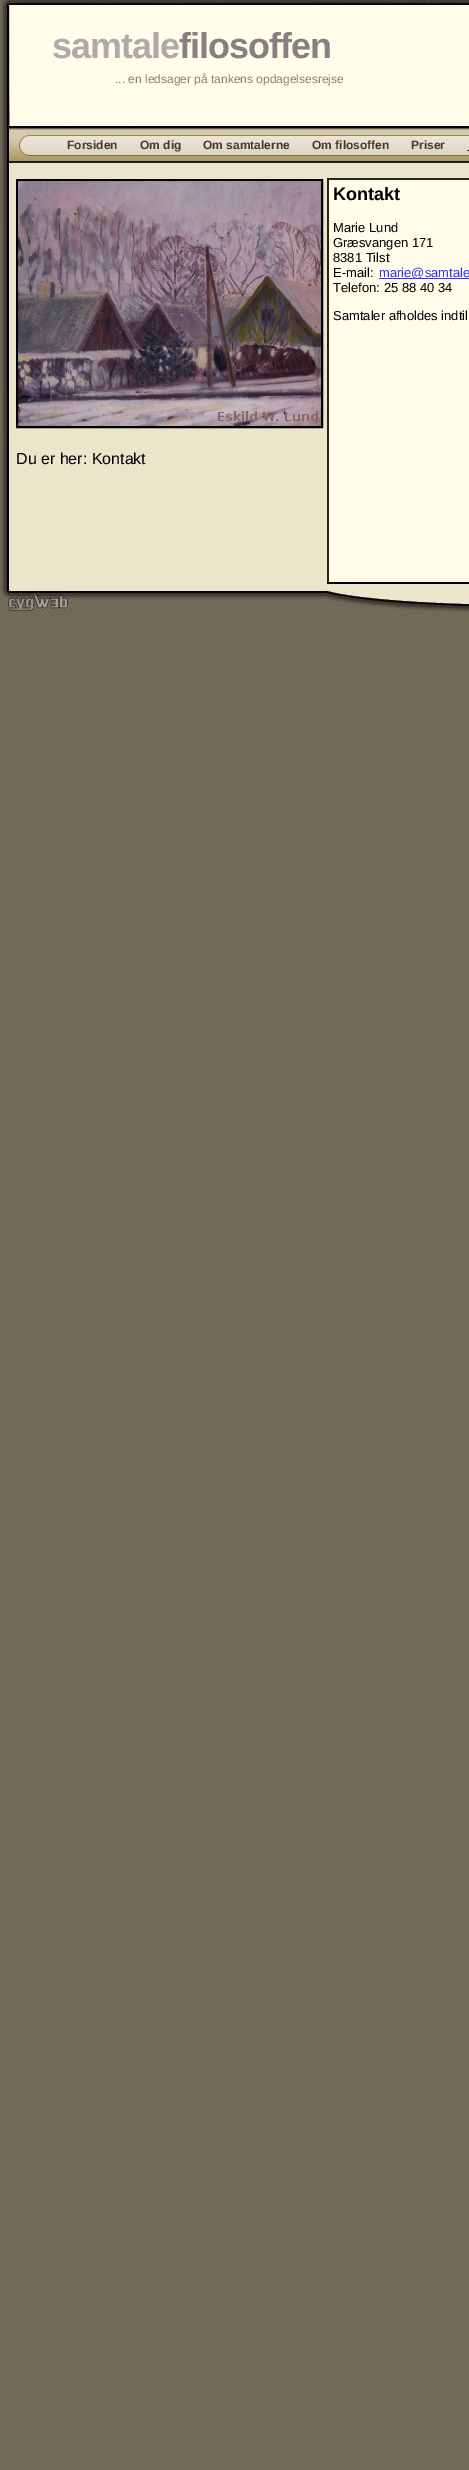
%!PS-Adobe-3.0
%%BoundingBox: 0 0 469 2470
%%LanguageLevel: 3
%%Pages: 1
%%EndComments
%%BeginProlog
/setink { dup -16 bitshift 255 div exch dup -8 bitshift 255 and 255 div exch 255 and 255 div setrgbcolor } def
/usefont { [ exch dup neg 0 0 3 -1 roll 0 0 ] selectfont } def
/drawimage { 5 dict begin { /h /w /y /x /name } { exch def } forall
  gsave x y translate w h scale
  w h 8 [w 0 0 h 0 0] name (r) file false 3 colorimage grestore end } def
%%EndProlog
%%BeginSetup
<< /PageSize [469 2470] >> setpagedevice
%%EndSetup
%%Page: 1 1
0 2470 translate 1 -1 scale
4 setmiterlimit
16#736A59 setink
0 0 469 2470 rectfill
(img1.raw) 0 129 469 101 drawimage
(img2.raw) 0 0 469 129 drawimage
/LiberationSans-Bold 36 usefont
16#AEAAAA setink
52 58 moveto -1 0 (samtale) ashow
16#838181 setink
179 58 moveto -1 0 (filosoffen) ashow
/LiberationSans-Regular 12 usefont
115 83 moveto (... en ledsager på tankens opdagelsesrejse) show
(img3.raw) 2 129 467 34 drawimage
/LiberationSans-Bold 12 usefont
16#443A24 setink
[
    [(Forsiden) 67 149]
    [(Om dig) 140 149]
    [(Om samtalerne) 203 149]
    [(Om filosoffen) 312 149]
    [(Priser) 411 149]
] { aload pop moveto show } forall
467 150 2 1 rectfill
(img4.raw) 0 230 469 386 drawimage
(img5.raw) 327 178 142 404 drawimage
16#000000 setink
327 582 142 2 rectfill
/LiberationSans-Bold 18 usefont
333 200 moveto (Kontakt) show
/LiberationSans-Regular 13 usefont
[
    [(Marie Lund) 333 232]
    [(Græsvangen 171) 333 247]
    [(8381 Tilst) 333 262]
    [(E-mail:) 333 277]
] { aload pop moveto show } forall
16#3333FF setink
379 278 90 1 rectfill
379 277 moveto (marie@samtale) show
16#000000 setink
333 292 moveto (Telefon: 25 88 40 34) show
333 320 moveto (Samtaler afholdes indtil) show
2 setlinewidth
17 180 305 247 rectstroke
(img6.raw) 18 181 303 245 drawimage
/LiberationSans-Regular 16 usefont
16 464 moveto (Du er her: Kontakt) show
showpage
%%EOF
